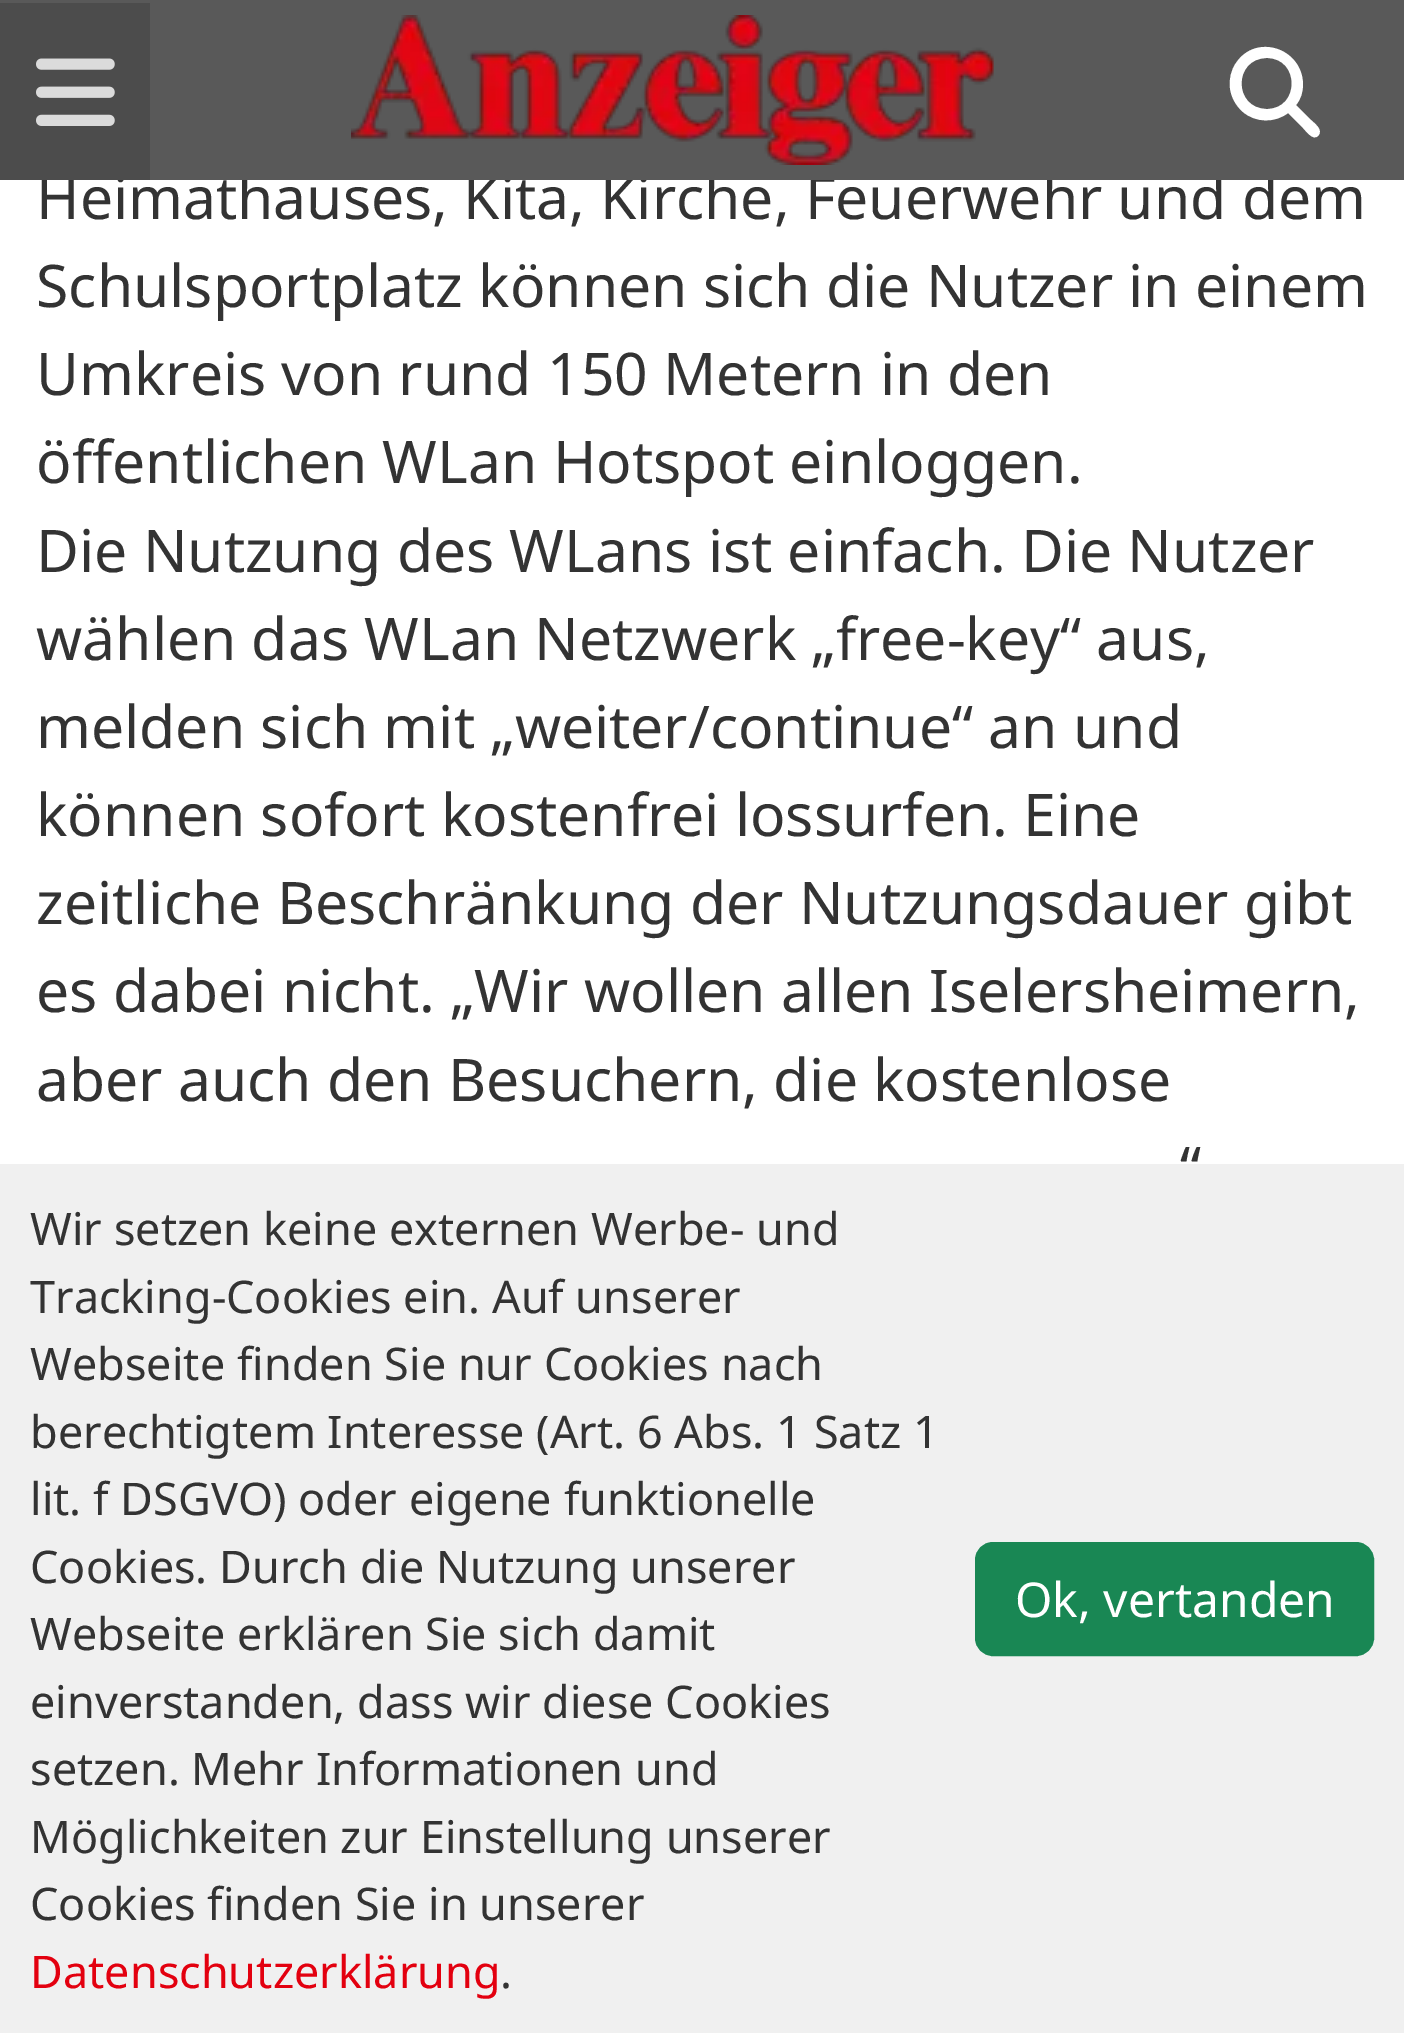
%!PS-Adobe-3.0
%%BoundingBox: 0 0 1404 2033
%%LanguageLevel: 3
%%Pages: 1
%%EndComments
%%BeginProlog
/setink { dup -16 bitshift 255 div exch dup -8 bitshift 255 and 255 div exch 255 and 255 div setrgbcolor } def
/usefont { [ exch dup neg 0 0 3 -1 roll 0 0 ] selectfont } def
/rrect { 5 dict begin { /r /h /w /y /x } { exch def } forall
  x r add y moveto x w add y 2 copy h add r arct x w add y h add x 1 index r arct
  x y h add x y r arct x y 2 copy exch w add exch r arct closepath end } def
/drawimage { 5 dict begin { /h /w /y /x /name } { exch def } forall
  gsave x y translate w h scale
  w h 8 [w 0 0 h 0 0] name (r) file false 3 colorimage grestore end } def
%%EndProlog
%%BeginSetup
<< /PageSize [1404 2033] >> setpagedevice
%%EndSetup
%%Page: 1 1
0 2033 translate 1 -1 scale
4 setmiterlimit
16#FFFFFF setink
0 0 1404 2033 rectfill
/NotoSans-Regular 58.8 usefont
16#333333 setink
36 219 moveto (Heimathauses, Kita, Kirche, Feuerwehr und dem) show
16#595959 setink
0 0 1404 180 rectfill
16#4C4C4C setink
0 3 150 177 rectfill
(img1.raw) 36 58 79 68 drawimage
(img2.raw) 351 15 643 150 drawimage
16#FFFFFF setink
1303 84 moveto 1303 92 1301 99 1296 105 curveto 1311 120 lineto 1314 123 1324 130 1318 136 curveto 1313 141 1306 131 1303 128 curveto 1288 113 lineto 1275 123 1256 123 1243 112 curveto 1236 106 1231 97 1230 88 curveto 1229 79 1231 70 1236 63 curveto 1256 33 1302 48 1303 84 curveto closepath 1267 109 moveto 1300 109 1300 58 1267 58 curveto 1233 58 1233 109 1267 109 curveto closepath fill
16#333333 setink
[
    [(Schulsportplatz können sich die Nutzer in einem) 36 307]
    [(Umkreis von rund 150 Metern in den) 36 395]
    [(öffentlichen WLan Hotspot einloggen.) 36 483]
    [(Die Nutzung des WLans ist einfach. Die Nutzer) 36 572]
    [(wählen das WLan Netzwerk „free-key“ aus,) 36 660]
    [(melden sich mit „weiter/continue“ an und) 36 748]
    [(können sofort kostenfrei lossurfen. Eine) 36 836]
    [(zeitliche Beschränkung der Nutzungsdauer gibt) 36 924]
    [(es dabei nicht. „Wir wollen allen Iselersheimern,) 36 1012]
    [(aber auch den Besuchern, die kostenlose) 36 1101]
    [(“) 1180 1189]
] { aload pop moveto show } forall
16#F0F0F0 setink
0 1164 1404 869 rectfill
/NotoSans-Regular 45 usefont
16#333333 setink
[
    [(Wir setzen keine externen Werbe- und) 30 1245]
    [(Tracking-Cookies ein. Auf unserer) 30 1313]
    [(Webseite finden Sie nur Cookies nach) 30 1380]
    [(berechtigtem Interesse \(Art. 6 Abs. 1 Satz 1) 30 1448]
    [(lit. f DSGVO\) oder eigene funktionelle) 30 1515]
    [(Cookies. Durch die Nutzung unserer) 30 1583]
    [(Webseite erklären Sie sich damit) 30 1650]
    [(einverstanden, dass wir diese Cookies) 30 1718]
    [(setzen. Mehr Informationen und) 30 1785]
    [(Möglichkeiten zur Einstellung unserer) 30 1853]
    [(Cookies finden Sie in unserer) 30 1920]
] { aload pop moveto show } forall
16#E3000F setink
30 1988 moveto (Datenschutzerklärung) show
16#333333 setink
500 1988 moveto (.) show
16#198754 setink
976.5 1543.5 396 111 16.5 rrect gsave fill grestore
3 setlinewidth
stroke
/NotoSans-Regular 48 usefont
16#FFFFFF setink
1015 1617 moveto (Ok, vertanden) show
showpage
%%EOF
